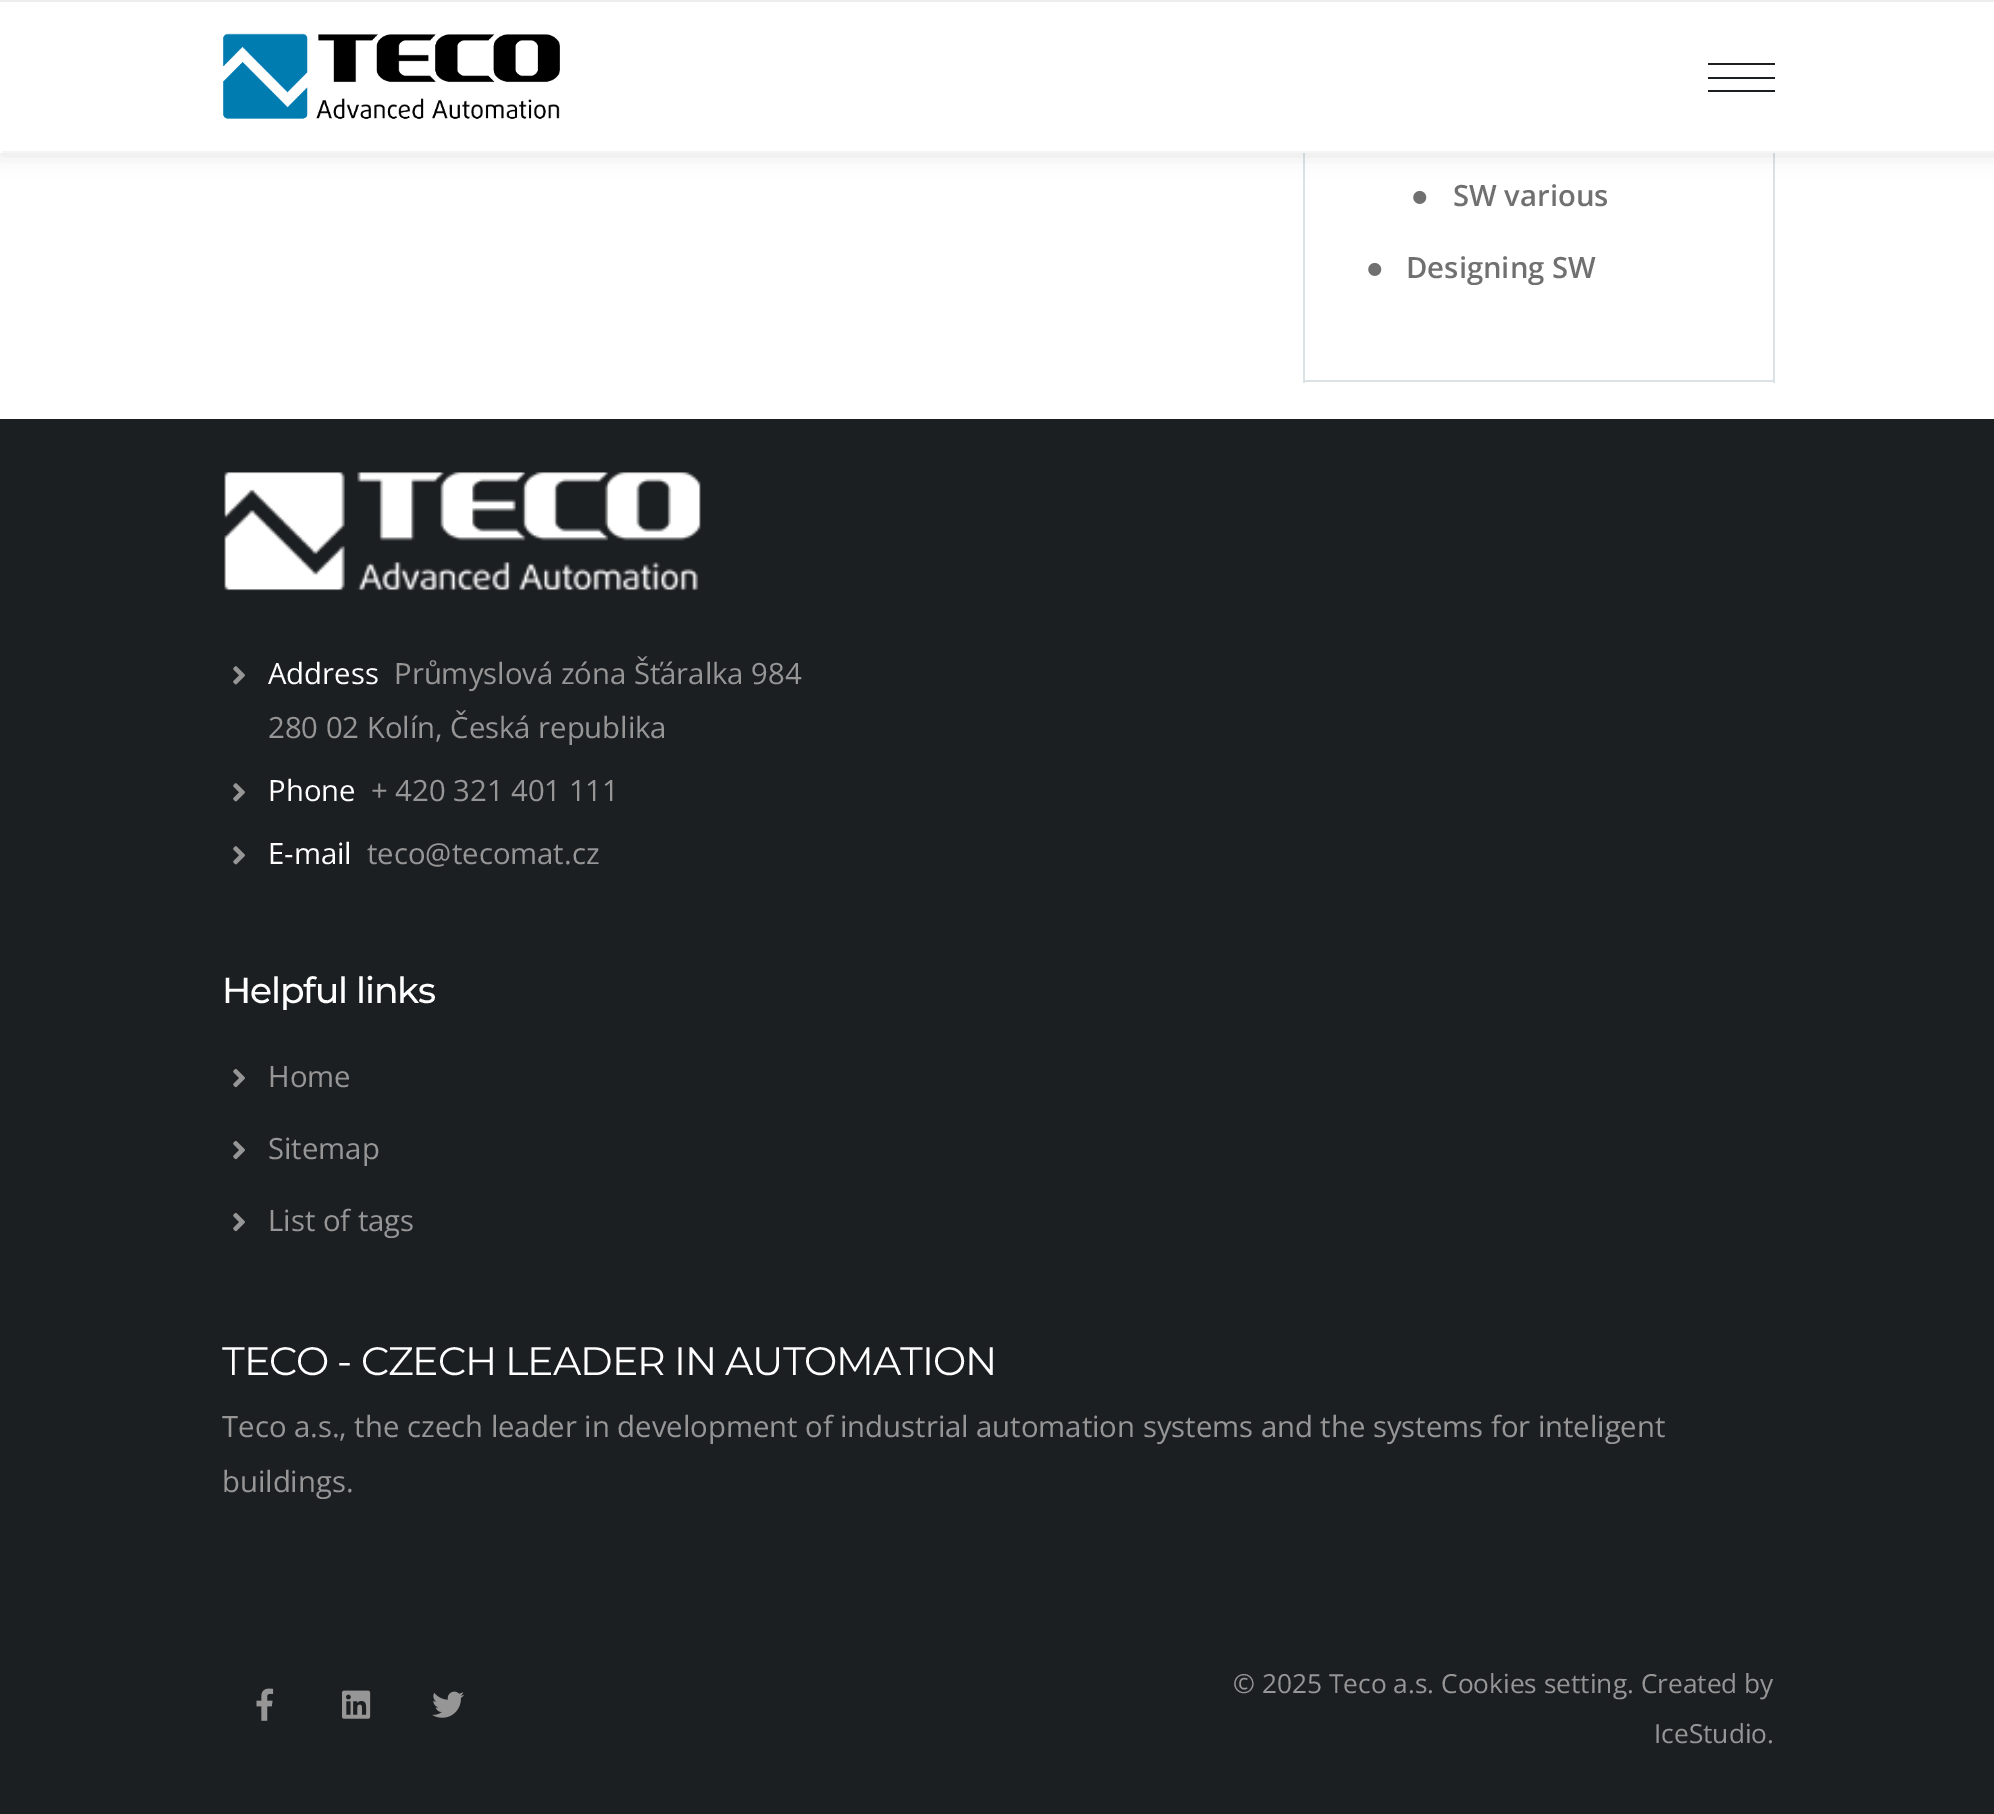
%!PS-Adobe-3.0
%%BoundingBox: 0 0 1994 1814
%%LanguageLevel: 3
%%Pages: 1
%%EndComments
%%BeginProlog
/setink { dup -16 bitshift 255 div exch dup -8 bitshift 255 and 255 div exch 255 and 255 div setrgbcolor } def
/usefont { [ exch dup neg 0 0 3 -1 roll 0 0 ] selectfont } def
/setalpha { dup .setfillconstantalpha .setstrokeconstantalpha } def
/rrect { 5 dict begin { /r /h /w /y /x } { exch def } forall
  x r add y moveto x w add y 2 copy h add r arct x w add y h add x 1 index r arct
  x y h add x y r arct x y 2 copy exch w add exch r arct closepath end } def
/softshadow { 12 dict begin { /a /b /q /h /w /y /x } { exch def } forall gsave /was 0 def
  9 -2 -9 { dup b mul 4 div /e exch def 1 sub .425 mul 2.718 exch exp 1 add a .99 .min exch div /now exch def
    1 1 now sub 1 was sub div sub setalpha /was now def
    w h .min e 2 mul add 0 gt { x e sub y e sub w e 2 mul add h e 2 mul add
      q e add b .6 mul add w h .min 2 div e add .min 0 .max rrect fill } if } for grestore end } def
/drawimage { 5 dict begin { /h /w /y /x /name } { exch def } forall
  gsave x y translate w h scale
  w h 8 [w 0 0 h 0 0] name (r) file false 3 colorimage grestore end } def
%%EndProlog
%%BeginSetup
<< /PageSize [1994 1814] /PageUsesTransparency true >> setpagedevice
%%EndSetup
%%Page: 1 1
0 .pushpdf14devicefilter
0 1814 translate 1 -1 scale
4 setmiterlimit
16#1C1F21 setink
0 0 1994 1814 rectfill
[
    [0 153 1994 266 16#FFFFFF]
    [1773 153 2 230 16#DAE2E6]
    [1303 380 472 2 16#DAE2E6]
    [1303 153 2 230 16#DAE2E6]
] { aload pop setink rectfill } forall
16#000000 setink
0 2 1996 153 0 11 0.11 softshadow
16#FFFFFF setink
0 2 1994 151 rectfill
16#EDEDEE setink
0 0 1994 2 rectfill
(img1.raw) 223 33 337 86 drawimage
[
    [1708 63 67 2 16#1C1F21]
    [1708 77 67 2 16#1C1F21]
    [1708 90 67 2 16#1C1F21]
    [2 151 1992 2 16#F5F5F5]
] { aload pop setink rectfill } forall
(img2.raw) 1413 190 14 14 drawimage
/OpenSans-SemiBold 29.25 usefont
16#707070 setink
1453 206 moveto (SW various) show
(img2.raw) 1368 262 14 14 drawimage
1406 278 moveto (Designing SW) show
(img3.raw) 224 472 477 119 drawimage
(img4.raw) 233 666 12 19 drawimage
/OpenSans-Regular 29.25 usefont
16#FFFFFF setink
268 684 moveto (Address) show
16#969696 setink
394 684 moveto (Průmyslová zóna Šťáralka 984) show
268 738 moveto (280 02 Kolín, Česká republika) show
(img4.raw) 233 783 12 19 drawimage
16#FFFFFF setink
268 801 moveto (Phone) show
16#969696 setink
371 801 moveto (+ 420 321 401 111) show
(img4.raw) 233 846 12 19 drawimage
16#FFFFFF setink
268 864 moveto (E-mail) show
16#969696 setink
367 864 moveto (teco@tecomat.cz) show
/Montserrat-Medium 36 usefont
16#FFFFFF setink
222 1003 moveto -1.1 0 (Helpful links) ashow
(img5.raw) 233 1068 12 20 drawimage
/OpenSans-Regular 29.25 usefont
16#969696 setink
268 1087 moveto (Home) show
(img5.raw) 233 1140 12 20 drawimage
268 1159 moveto (Sitemap) show
(img5.raw) 233 1212 12 20 drawimage
268 1231 moveto (List of tags) show
/Montserrat-Regular 39.6 usefont
16#FFFFFF setink
222 1375 moveto -1.1 0 (TECO - CZECH LEADER IN AUTOMATION) ashow
/OpenSans-Regular 29.25 usefont
16#969696 setink
222 1437 moveto (Teco a.s., the czech leader in development of industrial automation systems and the systems for inteligent) show
222 1492 moveto (buildings.) show
(img6.raw) 256 1688 18 33 drawimage
(img7.raw) 342 1690 29 29 drawimage
(img8.raw) 432 1691 32 27 drawimage
/OpenSans-Regular 26.3 usefont
1233 1693 moveto (© 2025 Teco a.s. Cookies setting. Created by) show
1654 1743 moveto (IceStudio.) show
.poppdf14devicefilter showpage
%%EOF
